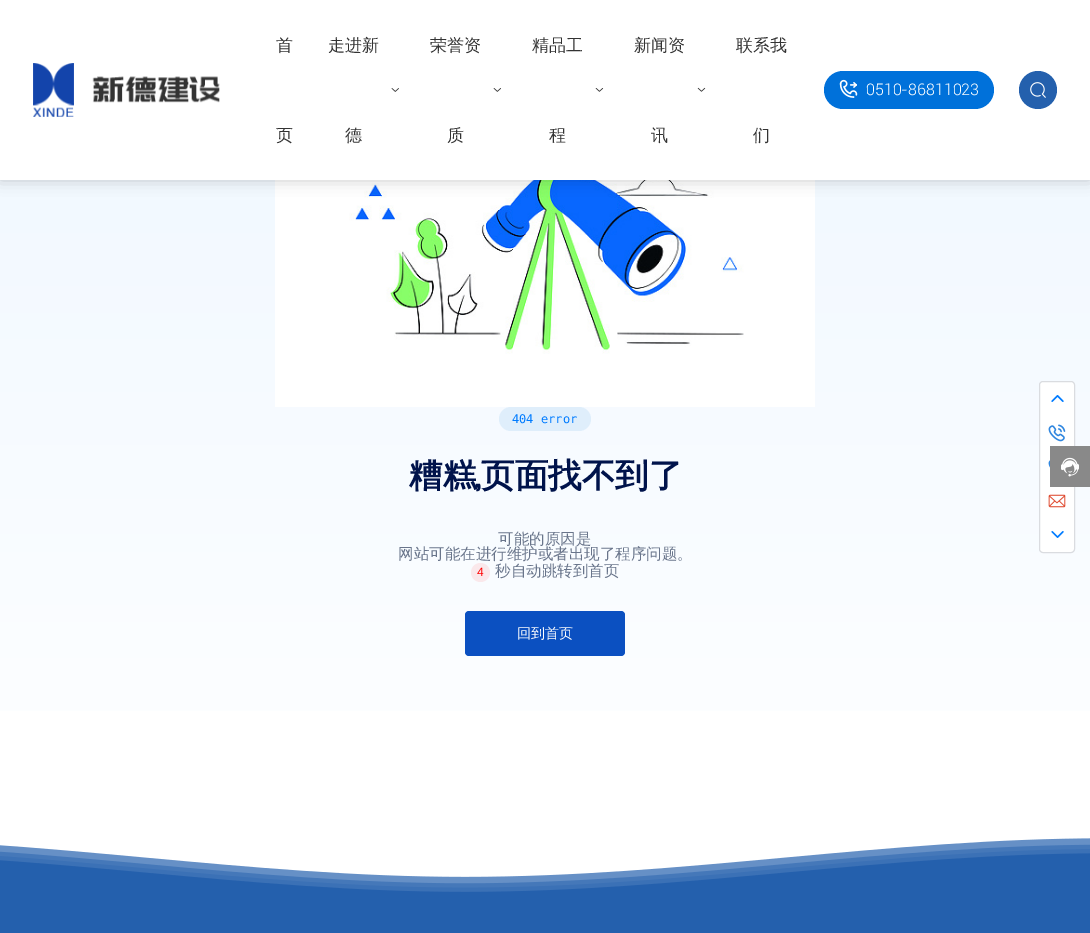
%!PS-Adobe-3.0
%%BoundingBox: 0 0 1090 933
%%LanguageLevel: 3
%%Pages: 1
%%EndComments
%%BeginProlog
/setink { dup -16 bitshift 255 div exch dup -8 bitshift 255 and 255 div exch 255 and 255 div setrgbcolor } def
/usefont { [ exch dup neg 0 0 3 -1 roll 0 0 ] selectfont } def
/setalpha { dup .setfillconstantalpha .setstrokeconstantalpha } def
/disc { newpath 0 360 arc closepath } def
/rrect { 5 dict begin { /r /h /w /y /x } { exch def } forall
  x r add y moveto x w add y 2 copy h add r arct x w add y h add x 1 index r arct
  x y h add x y r arct x y 2 copy exch w add exch r arct closepath end } def
/softshadow { 12 dict begin { /a /b /q /h /w /y /x } { exch def } forall gsave /was 0 def
  9 -2 -9 { dup b mul 4 div /e exch def 1 sub .425 mul 2.718 exch exp 1 add a .99 .min exch div /now exch def
    1 1 now sub 1 was sub div sub setalpha /was now def
    w h .min e 2 mul add 0 gt { x e sub y e sub w e 2 mul add h e 2 mul add
      q e add b .6 mul add w h .min 2 div e add .min 0 .max rrect fill } if } for grestore end } def
/drawimage { 5 dict begin { /h /w /y /x /name } { exch def } forall
  gsave x y translate w h scale
  w h 8 [w 0 0 h 0 0] name (r) file false 3 colorimage grestore end } def
%%EndProlog
%%BeginSetup
<< /PageSize [1090 933] /PageUsesTransparency true >> setpagedevice
%%EndSetup
%%Page: 1 1
0 .pushpdf14devicefilter
0 933 translate 1 -1 scale
4 setmiterlimit
16#FFFFFF setink
0 0 1090 933 rectfill
gsave 0 180 moveto 1090 180 lineto 1090 711 lineto 0 711 lineto closepath clip newpath
<< /ShadingType 2 /ColorSpace /DeviceRGB /Coords [545 0 545 834] /Extend [true true] /Function << /FunctionType 2 /Domain [0 1] /C0 [0.933 0.969 1] /C1 [1 1 1] /N 1 >> >> shfill grestore
(img14.raw) 275 180 540 227 drawimage
16#000000 setink
0 0 1090 180 0 7.5 0.2 softshadow
16#FFFFFF setink
0 0 1090 180 rectfill
(img1.raw) 33 63 187 54 drawimage
/WenQuanYiZenHei-Medium 17 usefont
16#333333 setink
[
    [(首) 276 51]
    [(页) 276 141]
    [(走进新) 328 51]
    [(德) 345 141]
] { aload pop moveto show } forall
(img2.raw) 391 88 8 4 drawimage
430 51 moveto (荣誉资) show
447 141 moveto (质) show
(img3.raw) 493 88 8 4 drawimage
532 51 moveto (精品工) show
549 141 moveto (程) show
(img4.raw) 595 88 9 4 drawimage
634 51 moveto (新闻资) show
651 141 moveto (讯) show
(img5.raw) 697 87 9 5 drawimage
736 51 moveto (联系我) show
753 141 moveto (们) show
16#0071DA setink
824 71 170 38 19 rrect fill
(img6.raw) 839 79 19 19 drawimage
/Roboto-Light 16 usefont
16#FFFFFF setink
866 95 moveto (0510-86811023) show
16#2460AD setink
1038 90 19 disc fill
(img7.raw) 1030 82 16 16 drawimage
16#FFFFFF setink
1039.5 381.5 35 171 3.5 rrect gsave fill grestore
16#DADCE0 setink
stroke
(img8.raw) 1051 395 13 7 drawimage
(img9.raw) 1048 424 18 18 drawimage
(img10.raw) 1048 460 2 8 drawimage
(img11.raw) 1048 494 18 14 drawimage
(img12.raw) 1051 531 13 7 drawimage
(img13.raw) 0 838 1090 56 drawimage
16#2460AD setink
0 894 1090 39 rectfill
16#DFEEFB setink
499 407 92 24 12 rrect fill
/DejaVuSansMono-Regular 12 usefont
16#007BFF setink
512 423 moveto (404 error) show
/WenQuanYiZenHei-Bold 33.5 usefont
16#00134B setink
409 487 moveto (糟糕) show
/Poppins-Bold 33.5 usefont
475 487 moveto (,) show
/WenQuanYiZenHei-Bold 33.5 usefont
481 487 moveto (页面找不到了) show
/WenQuanYiZenHei-Medium 15.5 usefont
16#69758B setink
498 544 moveto (可能的原因是) show
398 559 moveto (网站可能在进行维护或者出现了程序问题。) show
16#FAE8EB setink
480.5 572.5 9.5 disc fill
/LiberationSans-Regular 12 usefont
16#FF0000 setink
477 576 moveto (4) show
/WenQuanYiZenHei-Medium 15.5 usefont
16#69758B setink
495 576 moveto (秒自动跳转到首页) show
16#0B50C1 setink
465 611 160 45 4 rrect fill
/WenQuanYiZenHei-Medium 14 usefont
16#FFFFFF setink
517 638 moveto (回到首页) show
16#898989 setink
1050 446 40 41 rectfill
(img15.raw) 1061 457 18 20 drawimage
.poppdf14devicefilter showpage
%%EOF
